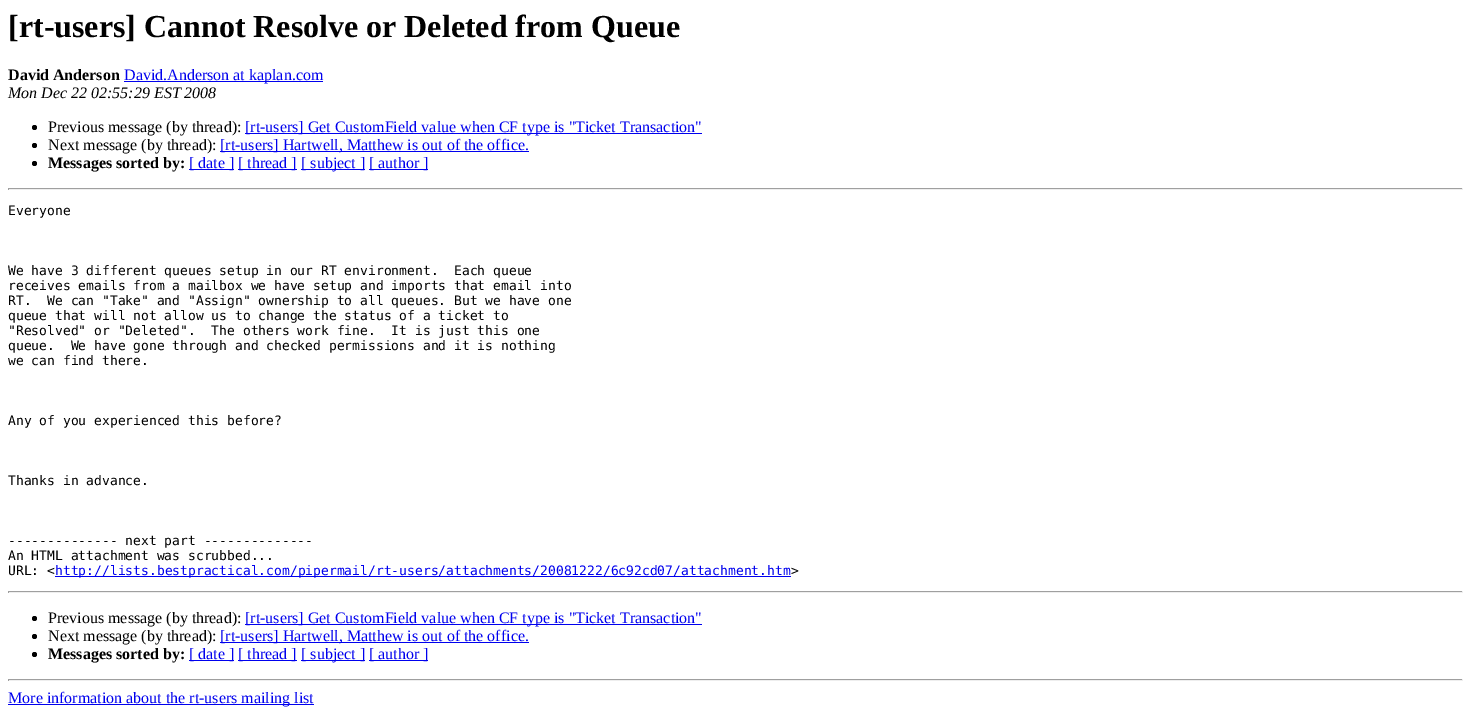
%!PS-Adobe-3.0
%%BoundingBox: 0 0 1471 719
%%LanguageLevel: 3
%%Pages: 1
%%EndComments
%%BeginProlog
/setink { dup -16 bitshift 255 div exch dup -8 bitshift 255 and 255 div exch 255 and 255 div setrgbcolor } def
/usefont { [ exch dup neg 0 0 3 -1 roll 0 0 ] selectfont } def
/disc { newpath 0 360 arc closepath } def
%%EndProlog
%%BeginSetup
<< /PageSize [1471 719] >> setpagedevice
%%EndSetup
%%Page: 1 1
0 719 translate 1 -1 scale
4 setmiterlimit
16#FFFFFF setink
0 0 1471 719 rectfill
/LiberationSerif-Bold 32 usefont
16#000000 setink
8 37 moveto ([rt-users] Cannot Resolve or Deleted from Queue) show
/LiberationSerif-Bold 16 usefont
8 80 moveto (David Anderson) show
16#0000EE setink
124 81 199 1 rectfill
/LiberationSerif-Regular 16 usefont
124 80 moveto (David.Anderson at kaplan.com) show
/LiberationSerif-Italic 16 usefont
16#000000 setink
8 98 moveto (Mon Dec 22 02:55:29 EST 2008) show
34.5 127.5 2.5 disc fill
/LiberationSerif-Regular 16 usefont
48 132 moveto (Previous message \(by thread\):) show
16#0000EE setink
245 133 457 1 rectfill
245 132 moveto ([rt-users] Get CustomField value when CF type is "Ticket Transaction") show
16#000000 setink
34.5 145.5 2.5 disc fill
48 150 moveto (Next message \(by thread\):) show
16#0000EE setink
220 151 309 1 rectfill
220 150 moveto ([rt-users] Hartwell, Matthew is out of the office.) show
16#000000 setink
34.5 163.5 2.5 disc fill
/LiberationSerif-Bold 16 usefont
48 168 moveto (Messages sorted by:) show
16#0000EE setink
189 169 45 1 rectfill
/LiberationSerif-Regular 16 usefont
189 168 moveto ([ date ]) show
238 169 59 1 rectfill
238 168 moveto ([ thread ]) show
301 169 64 1 rectfill
301 168 moveto ([ subject ]) show
369 169 59 1 rectfill
369 168 moveto ([ author ]) show
[
    [8 188 1455 1 16#9F9F9F]
    [1462 188 1 2 16#EEEEEE]
    [8 189 1455 1 16#EEEEEE]
    [8 188 1 2 16#9F9F9F]
] { aload pop setink rectfill } forall
/DejaVuSansMono-Regular 13 usefont
16#000000 setink
[
    [(Everyone) 8 215]
    [(We have 3 different queues setup in our RT environment.  Each queue) 8 275]
    [(receives emails from a mailbox we have setup and imports that email into) 8 290]
    [(RT.  We can "Take" and "Assign" ownership to all queues. But we have one) 8 305]
    [(queue that will not allow us to change the status of a ticket to) 8 320]
    [("Resolved" or "Deleted".  The others work fine.  It is just this one) 8 335]
    [(queue.  We have gone through and checked permissions and it is nothing) 8 350]
    [(we can find there.) 8 365]
    [(Any of you experienced this before?) 8 425]
    [(Thanks in advance.) 8 485]
    [(-------------- next part --------------) 8 545]
    [(An HTML attachment was scrubbed...) 8 560]
    [(URL: <) 8 575]
] { aload pop moveto show } forall
16#0000EE setink
55 576 736 1 rectfill
55 575 moveto (http://lists.bestpractical.com/pipermail/rt-users/attachments/20081222/6c92cd07/attachment.htm) show
16#000000 setink
791 575 moveto (>) show
[
    [8 591 1455 1 16#9F9F9F]
    [1462 591 1 2 16#EEEEEE]
    [8 592 1455 1 16#EEEEEE]
    [8 591 1 2 16#9F9F9F]
] { aload pop setink rectfill } forall
16#000000 setink
34.5 618.5 2.5 disc fill
/LiberationSerif-Regular 16 usefont
48 623 moveto (Previous message \(by thread\):) show
16#0000EE setink
245 624 457 1 rectfill
245 623 moveto ([rt-users] Get CustomField value when CF type is "Ticket Transaction") show
16#000000 setink
34.5 636.5 2.5 disc fill
48 641 moveto (Next message \(by thread\):) show
16#0000EE setink
220 642 309 1 rectfill
220 641 moveto ([rt-users] Hartwell, Matthew is out of the office.) show
16#000000 setink
34.5 654.5 2.5 disc fill
/LiberationSerif-Bold 16 usefont
48 659 moveto (Messages sorted by:) show
16#0000EE setink
189 660 45 1 rectfill
/LiberationSerif-Regular 16 usefont
189 659 moveto ([ date ]) show
238 660 59 1 rectfill
238 659 moveto ([ thread ]) show
301 660 64 1 rectfill
301 659 moveto ([ subject ]) show
369 660 59 1 rectfill
369 659 moveto ([ author ]) show
[
    [8 679 1455 1 16#9F9F9F]
    [1462 679 1 2 16#EEEEEE]
    [8 680 1455 1 16#EEEEEE]
    [8 679 1 2 16#9F9F9F]
    [8 704 306 1 16#0000EE]
] { aload pop setink rectfill } forall
8 703 moveto (More information about the rt-users mailing list) show
showpage
%%EOF
